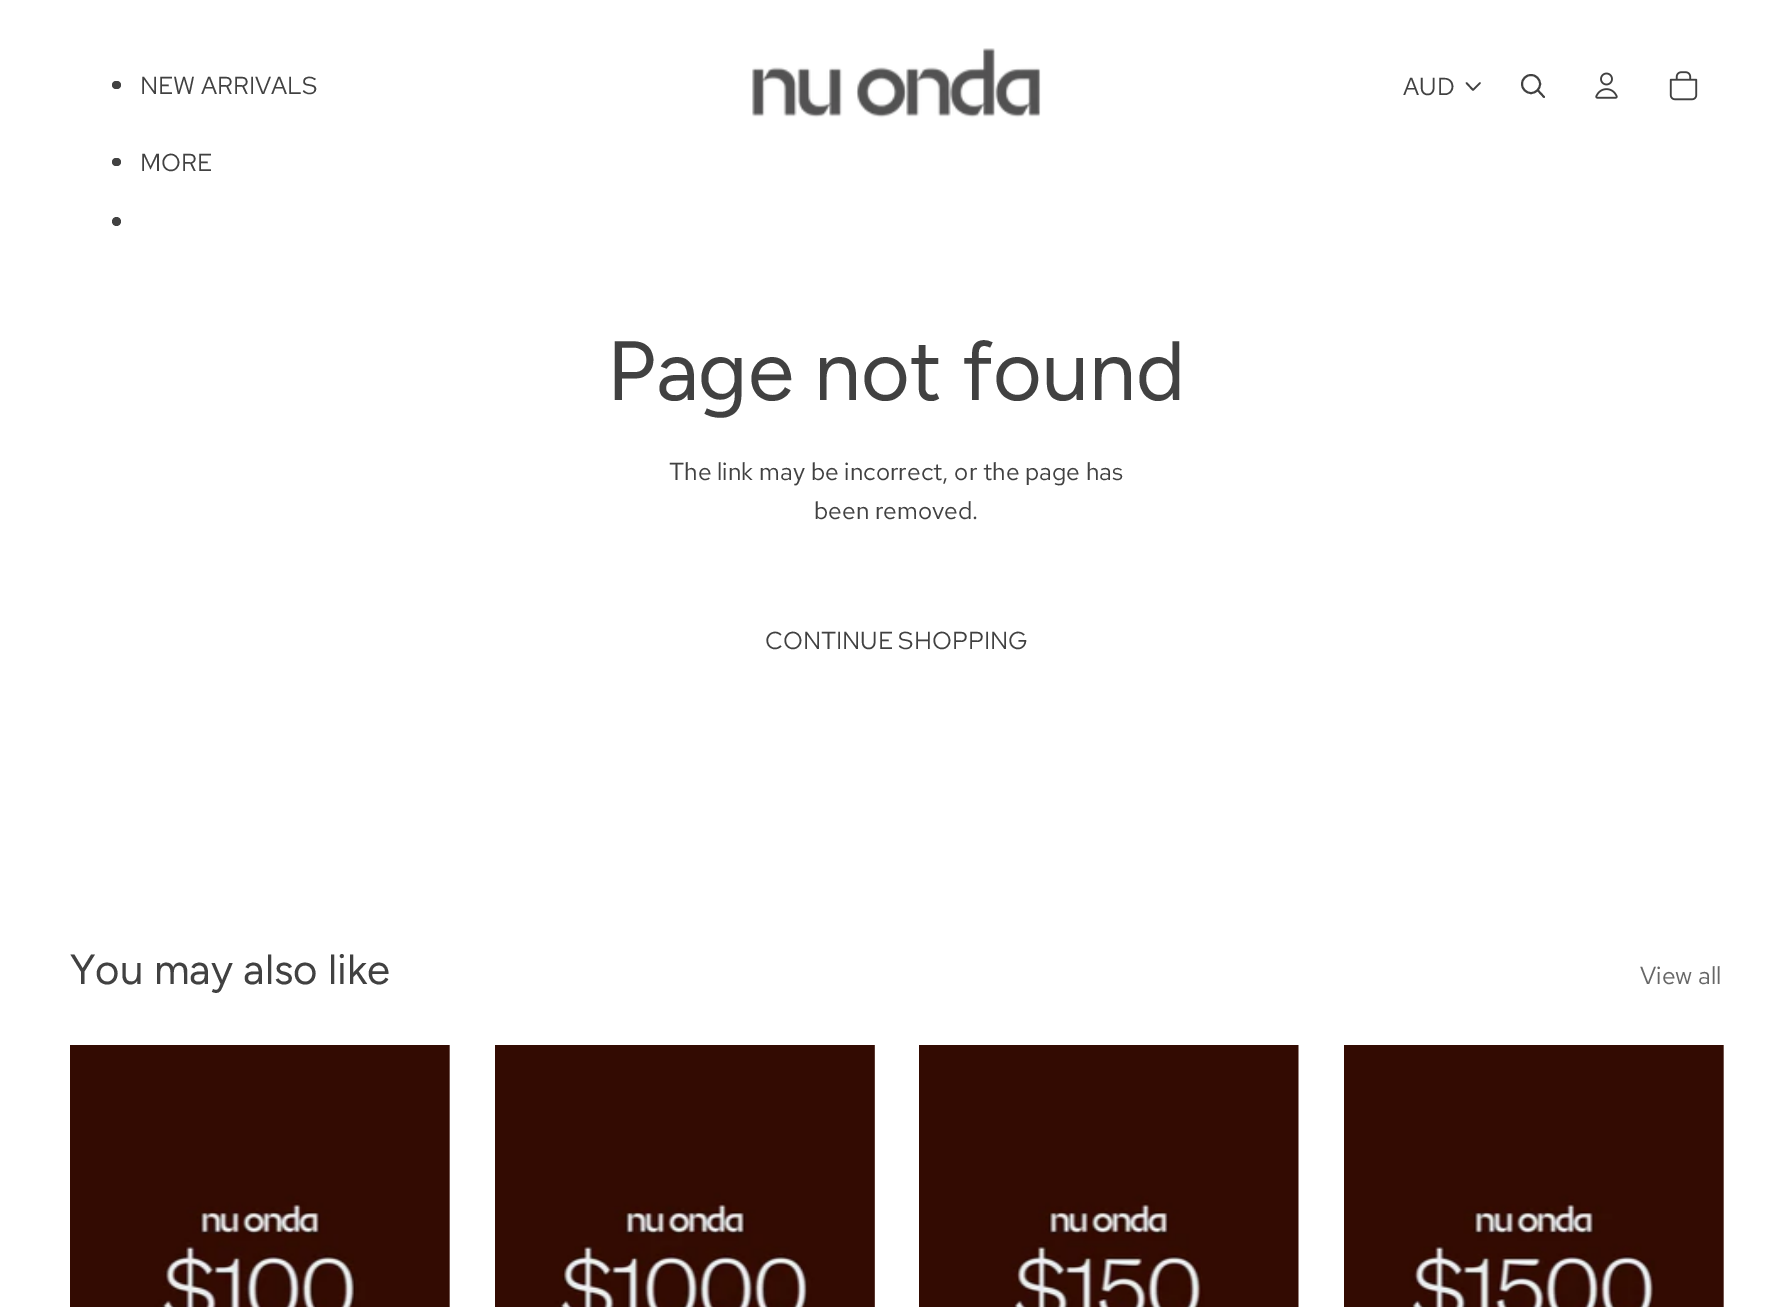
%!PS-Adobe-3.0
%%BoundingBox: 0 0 1791 1307
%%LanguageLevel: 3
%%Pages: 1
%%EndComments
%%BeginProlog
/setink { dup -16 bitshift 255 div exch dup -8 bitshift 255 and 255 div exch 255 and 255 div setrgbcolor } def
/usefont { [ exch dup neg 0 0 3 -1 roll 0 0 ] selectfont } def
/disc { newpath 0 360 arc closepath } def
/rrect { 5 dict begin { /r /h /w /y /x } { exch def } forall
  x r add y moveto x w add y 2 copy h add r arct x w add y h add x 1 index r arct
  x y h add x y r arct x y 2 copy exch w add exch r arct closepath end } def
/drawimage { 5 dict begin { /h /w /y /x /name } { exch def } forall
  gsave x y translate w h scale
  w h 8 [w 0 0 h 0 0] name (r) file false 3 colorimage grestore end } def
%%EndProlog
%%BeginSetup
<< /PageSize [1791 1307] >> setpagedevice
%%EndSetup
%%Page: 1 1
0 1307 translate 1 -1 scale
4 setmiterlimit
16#FFFFFF setink
0 0 1791 1307 rectfill
16#414141 setink
112 81 9 8 4 rrect fill
/RedHatText-Regular 24.5 usefont
140 94 moveto (NEW ARRIVALS) show
112 158 9 8 4 rrect fill
140 171 moveto (MORE) show
116.5 221.5 4.5 disc fill
(img1.raw) 752 48 289 70 drawimage
1403 95 moveto (AUD) show
1.7 setlinewidth
1 setlinecap
1 setlinejoin
1480 83 moveto 1473 90 lineto 1466.5 83 lineto stroke
1.9 setlinewidth
0 setlinecap
0 setlinejoin
1531 84 9 disc stroke
1 setlinecap
1 setlinejoin
1538 90.5 moveto 1544 97 lineto stroke
(img2.raw) 1595 72 23 27 drawimage
(img3.raw) 1669 71 29 30 drawimage
/Figtree-Regular 84 usefont
607 400 moveto (Page not found) show
/RedHatText-Regular 24.5 usefont
[
    [(The link may be incorrect, or the page has) 669 480]
    [(been removed.) 814 519]
    [(CONTINUE SHOPPING) 765 649]
] { aload pop moveto show } forall
/Figtree-Regular 42 usefont
70 984 moveto (You may also like) show
/RedHatText-Regular 24.5 usefont
16#666666 setink
1640 984 moveto (View all) show
(img4.raw) 70 1045 380 262 drawimage
(img5.raw) 495 1045 380 262 drawimage
(img6.raw) 919 1045 380 262 drawimage
(img7.raw) 1344 1045 380 262 drawimage
showpage
%%EOF
